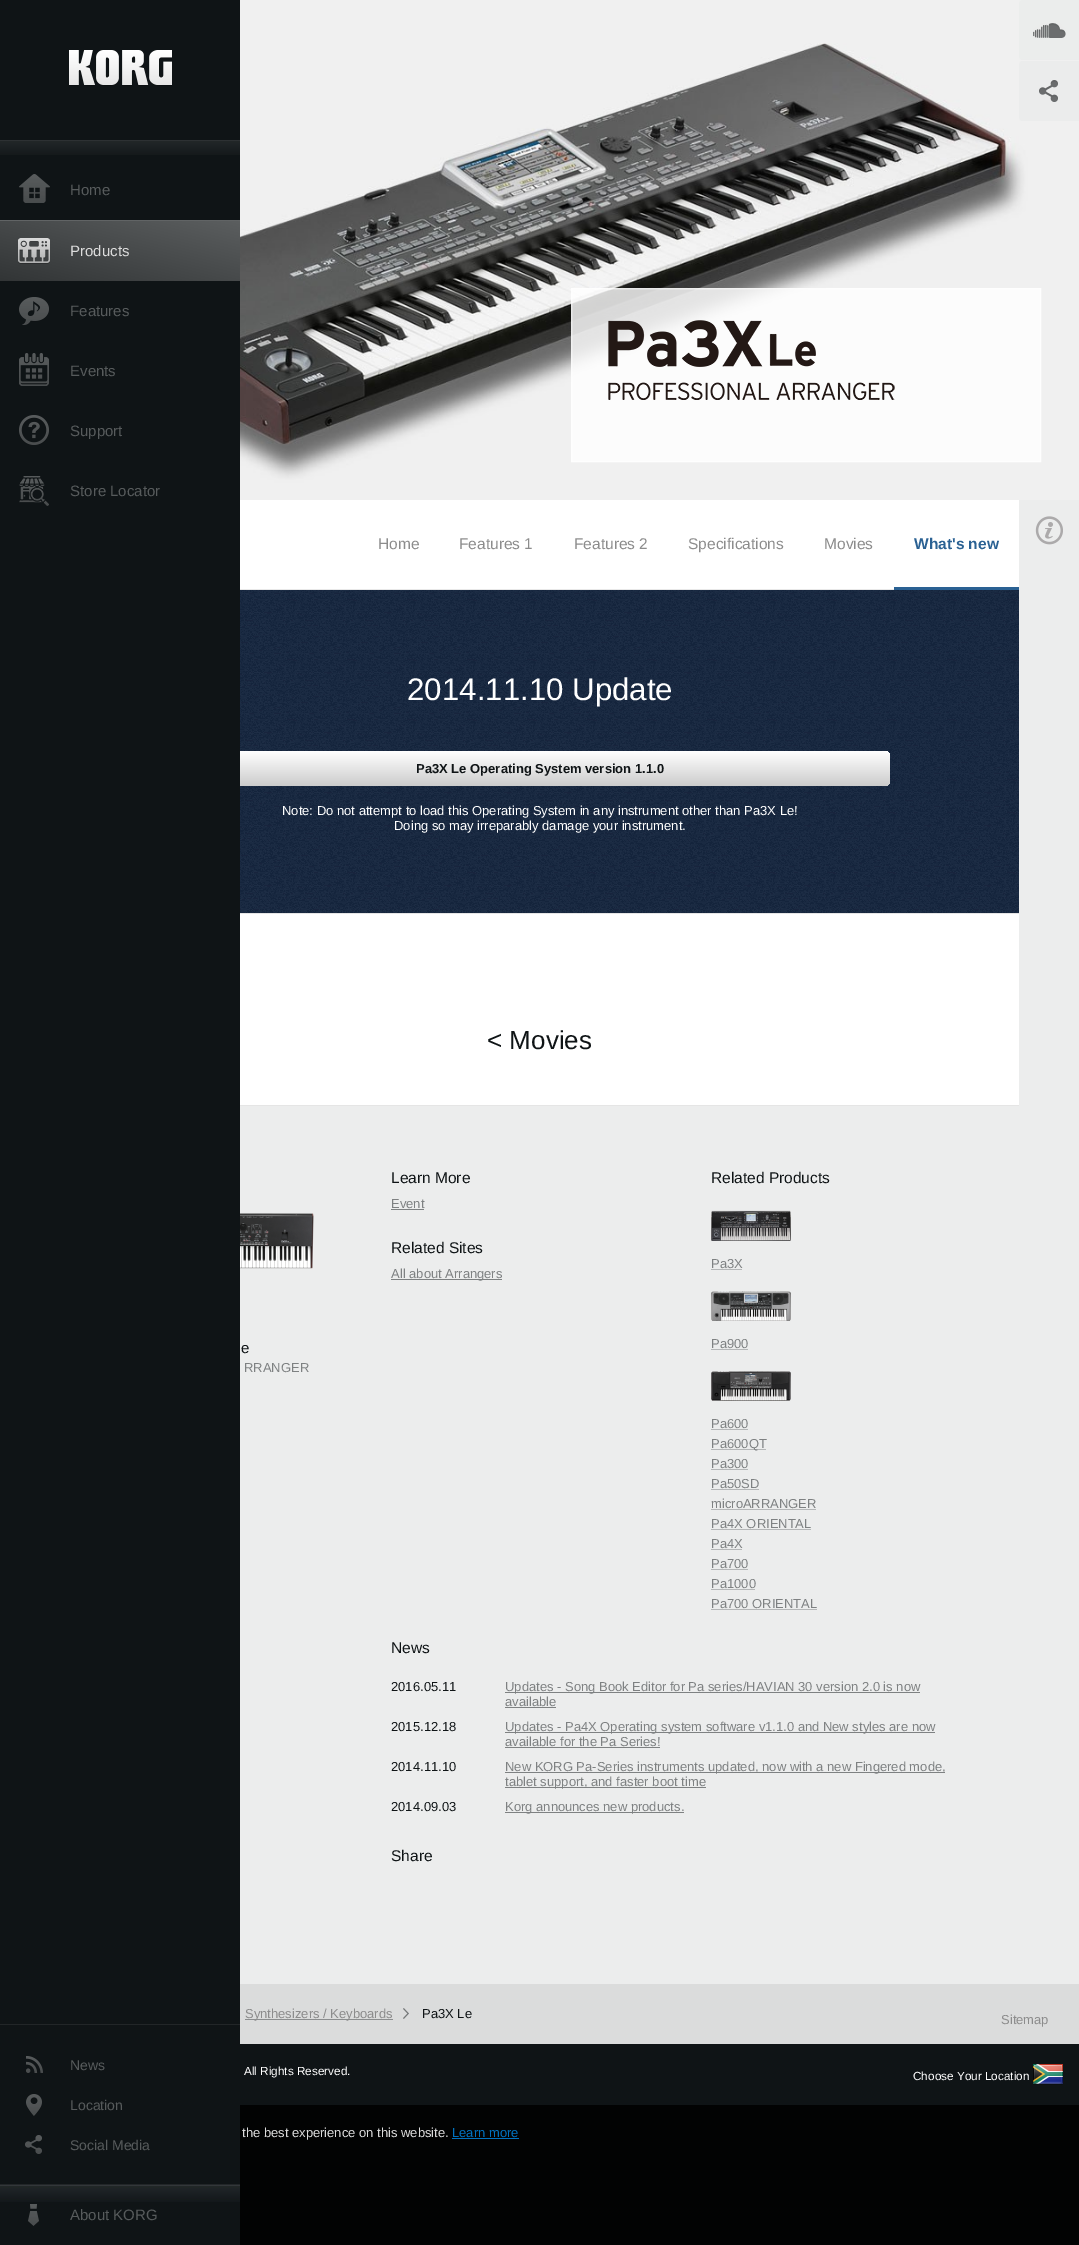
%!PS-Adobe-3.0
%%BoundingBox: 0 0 1079 2245
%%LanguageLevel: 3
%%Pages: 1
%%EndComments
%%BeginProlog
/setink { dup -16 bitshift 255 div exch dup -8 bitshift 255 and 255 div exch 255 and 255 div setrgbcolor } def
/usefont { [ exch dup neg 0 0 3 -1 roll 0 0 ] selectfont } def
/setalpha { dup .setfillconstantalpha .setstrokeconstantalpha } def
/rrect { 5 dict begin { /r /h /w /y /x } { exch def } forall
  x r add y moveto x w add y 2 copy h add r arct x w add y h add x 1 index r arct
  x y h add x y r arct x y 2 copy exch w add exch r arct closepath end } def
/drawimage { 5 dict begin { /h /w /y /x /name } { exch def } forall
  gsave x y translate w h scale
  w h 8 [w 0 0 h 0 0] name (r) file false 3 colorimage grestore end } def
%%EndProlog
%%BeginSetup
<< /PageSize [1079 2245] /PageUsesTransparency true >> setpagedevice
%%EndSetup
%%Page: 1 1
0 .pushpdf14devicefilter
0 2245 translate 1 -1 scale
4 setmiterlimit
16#0F1416 setink
0 0 1079 2245 rectfill
16#FFFFFF setink
240 500 779 605 rectfill
(img19.raw) 240 590 779 213 drawimage
gsave 189 751 701 35 5 rrect clip newpath
<< /ShadingType 2 /ColorSpace /DeviceRGB /Coords [540 751 540 786] /Extend [true true] /Function << /FunctionType 2 /Domain [0 1] /C0 [1 1 1] /C1 [0.8 0.8 0.8] /N 1 >> >> shfill grestore
16#0F1416 setink
189 751 51 35 rectfill
(img1.raw) 0 141 240 14 drawimage
16#2D3133 setink
0 140 240 1 rectfill
(img2.raw) 69 50 103 36 drawimage
(img3.raw) 19 174 31 29 drawimage
/LiberationSans-Regular 15 usefont
16#575B5C setink
70 195 moveto (Home) show
gsave 0 221 moveto 240 221 lineto 240 281 lineto 0 281 lineto closepath clip newpath
<< /ShadingType 2 /ColorSpace /DeviceRGB /Coords [106 307 134 195] /Extend [true true] /Function << /FunctionType 2 /Domain [0 1] /C0 [0.196 0.208 0.212] /C1 [0.357 0.369 0.373] /N 1 >> >> shfill grestore
16#616465 setink
0 220 240 1 rectfill
(img4.raw) 18 238 32 26 drawimage
16#DCDCDC setink
70 256 moveto (Products) show
(img5.raw) 19 297 30 28 drawimage
16#575B5C setink
70 316 moveto (Features) show
(img6.raw) 19 353 30 33 drawimage
70 376 moveto (Events) show
(img7.raw) 19 415 30 30 drawimage
70 436 moveto (Support) show
(img8.raw) 19 476 30 30 drawimage
70 496 moveto (Store Locator) show
16#222628 setink
0 2024 240 1 rectfill
(img9.raw) 26 2056 17 17 drawimage
/LiberationSans-Regular 14 usefont
16#575B5C setink
70 2070 moveto (News) show
(img10.raw) 26 2094 16 22 drawimage
70 2110 moveto (Location) show
(img11.raw) 25 2135 17 19 drawimage
70 2150 moveto (Social Media) show
(img12.raw) 0 2185 240 17 drawimage
16#222628 setink
0 2184 240 1 rectfill
(img13.raw) 28 2204 11 22 drawimage
/LiberationSans-Regular 15 usefont
16#575B5C setink
70 2220 moveto (About KORG) show
(img14.raw) 240 0 839 500 drawimage
(img15.raw) 1019 0 60 60 drawimage
(img16.raw) 1019 61 60 60 drawimage
0.9 setalpha
16#FFFFFF setink
571.5 288.5 469 173 rectstroke
0.81 setalpha
572 289 468 172 rectfill
1 setalpha
(img17.raw) 608 320 287 80 drawimage
16#E8E8E8 setink
240 589 654 1 rectfill
/LiberationSans-Regular 15.5 usefont
16#8C8C8C setink
[
    [(Home) 378 549]
    [(Features 1) 459 549]
    [(Features 2) 574 549]
    [(Specifications) 688 549]
    [(Movies) 824 549]
] { aload pop moveto show } forall
16#2A6193 setink
894 587 125 3 rectfill
/LiberationSans-Bold 15.5 usefont
914 549 moveto (What's new) show
16#ECEDED setink
1019 500 60 1484 rectfill
(img18.raw) 1035 516 28 29 drawimage
/LiberationSans-Regular 31.25 usefont
16#FFFFFF setink
407 700 moveto (2014.11.10 Update) show
/LiberationSans-Bold 13 usefont
16#0F1416 setink
416 773 moveto (Pa3X Le Operating System version 1.1.0) show
(img20.raw) 240 803 779 110 drawimage
/LiberationSans-Regular 13 usefont
16#FFFFFF setink
282 815 moveto (Note: Do not attempt to load this Operating System in any instrument other than Pa3X Le!) show
394 830 moveto (Doing so may irreparably damage your instrument.) show
16#E5E5E5 setink
240 913 779 1 rectfill
240 1105 779 1 rectfill
/LiberationSans-Regular 26 usefont
16#0F1416 setink
487 1049 moveto (< Movies) show
16#ECEDED setink
240 1106 779 878 rectfill
/LiberationSans-Regular 15.5 usefont
16#0F1416 setink
391 1183 moveto (Learn More) show
/LiberationSans-Regular 13 usefont
16#7E8182 setink
391 1208 moveto (Event) show
391 1209 33 1 rectfill
/LiberationSans-Regular 15.5 usefont
16#0F1416 setink
711 1183 moveto (Related Products) show
(img21.raw) 711 1210 80 31 drawimage
/LiberationSans-Regular 13 usefont
16#7E8182 setink
711 1268 moveto (Pa3X) show
16#B5B7B8 setink
711 1269 31 1 rectfill
(img22.raw) 711 1291 80 30 drawimage
16#7E8182 setink
711 1348 moveto (Pa900) show
16#B5B7B8 setink
711 1349 37 1 rectfill
(img23.raw) 711 1371 80 30 drawimage
16#7E8182 setink
711 1428 moveto (Pa600) show
16#B5B7B8 setink
711 1429 37 1 rectfill
711 1449 55 1 rectfill
16#7E8182 setink
711 1448 moveto (Pa600QT) show
711 1468 moveto (Pa300) show
16#B5B7B8 setink
711 1469 37 1 rectfill
16#7E8182 setink
711 1488 moveto (Pa50SD) show
16#B5B7B8 setink
711 1489 48 1 rectfill
16#7E8182 setink
711 1508 moveto (microARRANGER) show
16#B5B7B8 setink
711 1509 105 1 rectfill
16#7E8182 setink
711 1528 moveto (Pa4X ORIENTAL) show
16#B5B7B8 setink
711 1529 100 1 rectfill
16#7E8182 setink
711 1548 moveto (Pa4X) show
16#B5B7B8 setink
711 1549 31 1 rectfill
16#7E8182 setink
711 1568 moveto (Pa700) show
16#B5B7B8 setink
711 1569 37 1 rectfill
16#7E8182 setink
711 1588 moveto (Pa1000) show
16#B5B7B8 setink
711 1589 44 1 rectfill
16#7E8182 setink
711 1608 moveto (Pa700 ORIENTAL) show
16#B5B7B8 setink
711 1609 106 1 rectfill
/LiberationSans-Regular 15.5 usefont
16#0F1416 setink
391 1253 moveto (Related Sites) show
16#7E8182 setink
391 1279 111 1 rectfill
/LiberationSans-Regular 13 usefont
391 1278 moveto (All about Arrangers) show
(img24.raw) 240 1213 74 56 drawimage
/LiberationSans-Regular 15 usefont
16#0F1416 setink
241 1353 moveto (e) show
/LiberationSans-Regular 13 usefont
16#7E8182 setink
244 1372 moveto (RRANGER) show
/LiberationSans-Regular 15.5 usefont
16#0F1416 setink
391 1653 moveto (News) show
/LiberationSans-Regular 13 usefont
391 1691 moveto (2016.05.11) show
16#7E8182 setink
505 1692 415 1 rectfill
505 1691 moveto (Updates - Song Book Editor for Pa series/HAVIAN 30 version 2.0 is now) show
505 1706 moveto (available) show
505 1707 51 1 rectfill
16#0F1416 setink
391 1731 moveto (2015.12.18) show
16#7E8182 setink
505 1732 430 1 rectfill
505 1731 moveto (Updates - Pa4X Operating system software v1.1.0 and New styles are now) show
505 1746 moveto (available for the Pa Series!) show
505 1747 155 1 rectfill
16#0F1416 setink
391 1771 moveto (2014.11.10) show
16#7E8182 setink
505 1772 440 1 rectfill
505 1771 moveto (New KORG Pa-Series instruments updated, now with a new Fingered mode,) show
505 1787 201 1 rectfill
505 1786 moveto (tablet support, and faster boot time) show
16#0F1416 setink
391 1811 moveto (2014.09.03) show
16#7E8182 setink
505 1812 179 1 rectfill
505 1811 moveto (Korg announces new products.) show
/LiberationSans-Regular 15.5 usefont
16#0F1416 setink
391 1861 moveto (Share) show
16#DBDCDC setink
240 1984 839 60 rectfill
16#8B8D8E setink
245 2019 148 1 rectfill
/LiberationSans-Regular 13 usefont
16#8C8C8C setink
245 2018 moveto (Synthesizers / Keyboards) show
(img25.raw) 403 2008 6 11 drawimage
16#0F1416 setink
422 2018 moveto (Pa3X Le) show
16#8C8C8C setink
1001 2024 moveto (Sitemap) show
/LiberationSans-Regular 11.75 usefont
16#FFFFFF setink
244 2075 moveto (All Rights Reserved.) show
913 2080 moveto (Choose Your Location) show
(img26.raw) 1033 2064 30 21 drawimage
16#020303 setink
240 2105 839 140 rectfill
/LiberationSans-Regular 13 usefont
16#DCDCDC setink
242 2137 moveto (the best experience on this website.) show
16#0072C0 setink
452 2137 moveto (Learn more) show
452 2138 67 1 rectfill
.poppdf14devicefilter showpage
%%EOF
